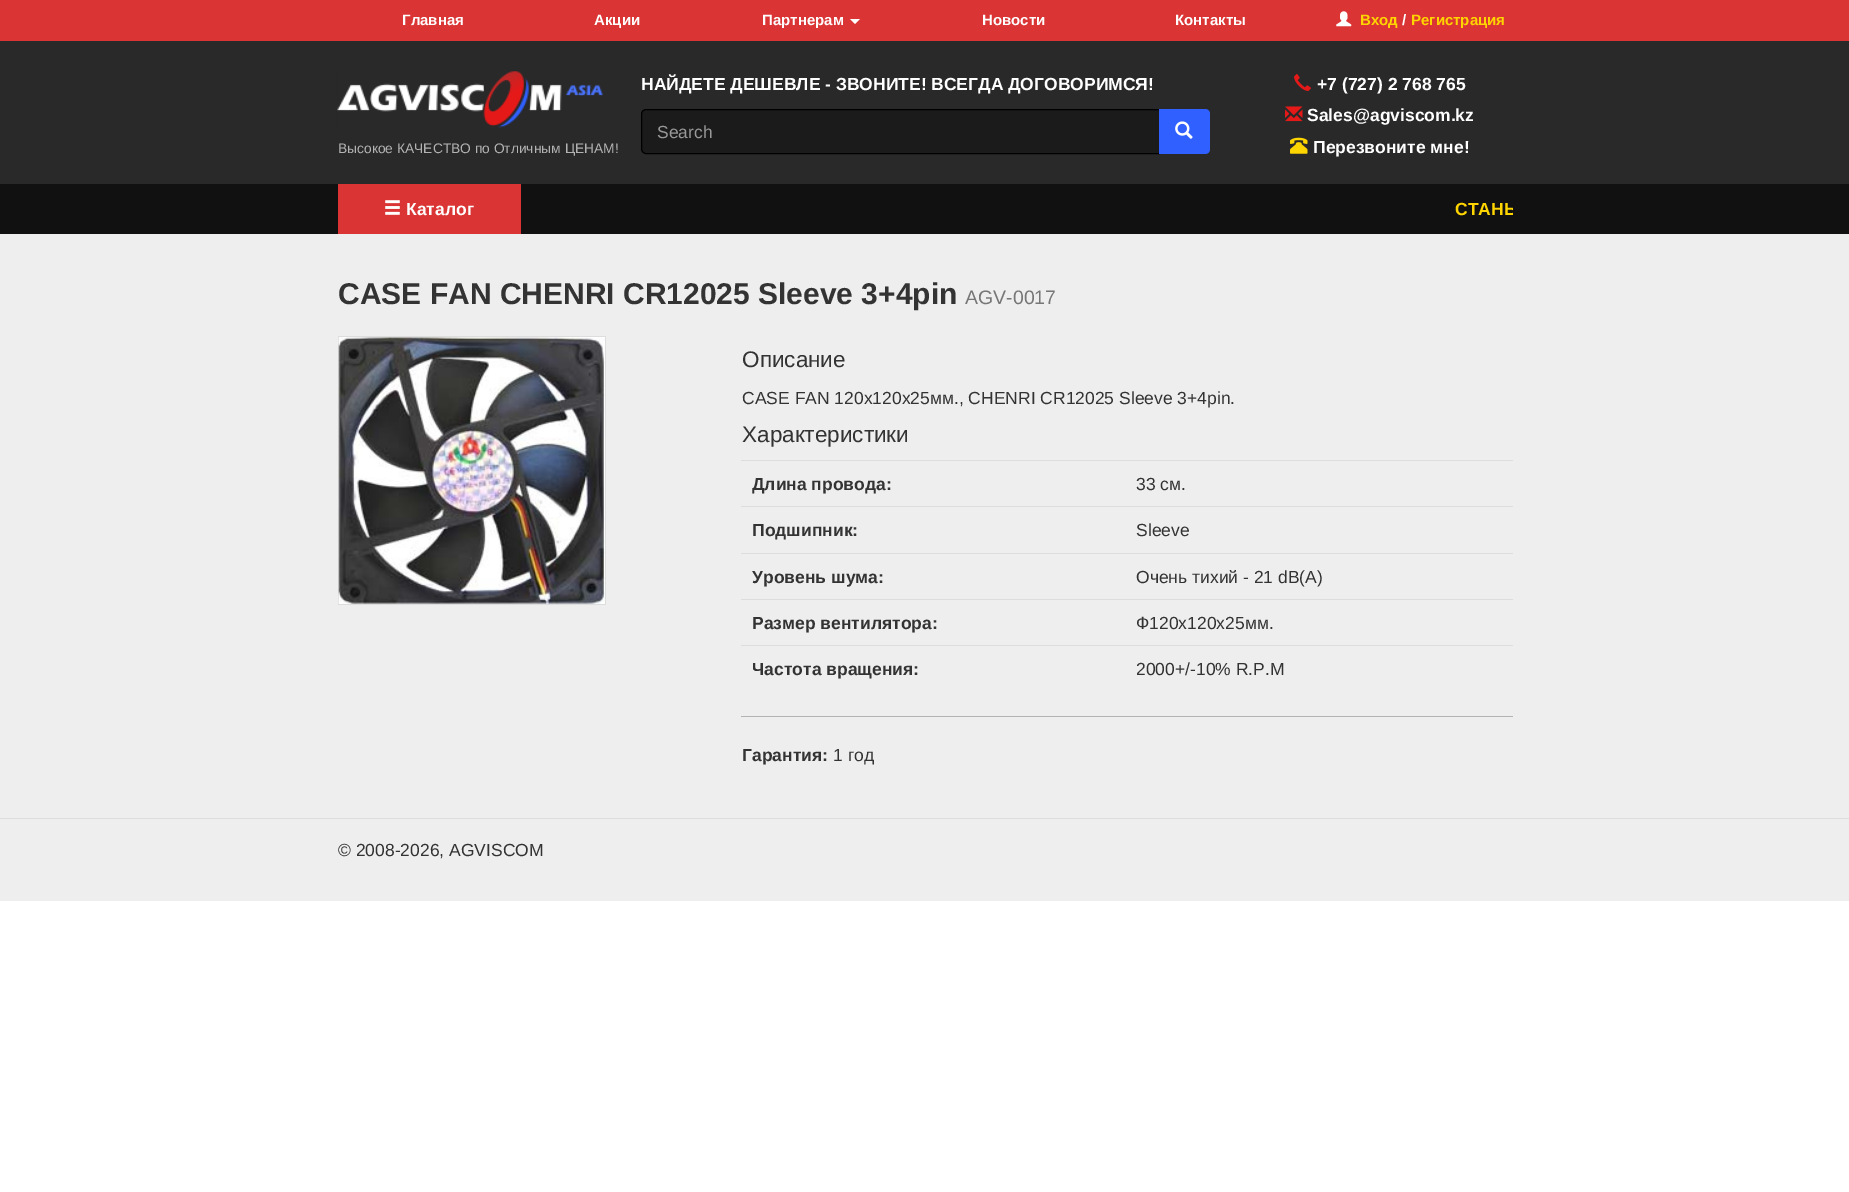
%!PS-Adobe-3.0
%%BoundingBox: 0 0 1849 1192
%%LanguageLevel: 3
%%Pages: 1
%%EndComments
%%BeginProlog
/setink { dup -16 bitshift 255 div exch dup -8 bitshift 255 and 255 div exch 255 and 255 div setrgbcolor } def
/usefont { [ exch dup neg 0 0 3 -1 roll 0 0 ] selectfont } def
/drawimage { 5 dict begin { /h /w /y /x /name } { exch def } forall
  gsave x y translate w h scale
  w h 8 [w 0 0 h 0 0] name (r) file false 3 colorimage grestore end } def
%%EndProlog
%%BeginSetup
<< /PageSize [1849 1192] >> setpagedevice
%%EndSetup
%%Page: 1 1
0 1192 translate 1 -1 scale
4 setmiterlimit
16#FFFFFF setink
0 0 1849 1192 rectfill
16#DB3434 setink
0 0 1849 41 rectfill
/LiberationSans-Bold 15 usefont
16#FFFFFF setink
[
    [(Главная) 402 25]
    [(Акции) 594 25]
    [(Партнерам) 762 25]
] { aload pop moveto show } forall
850 19 moveto 860 19 lineto 855 24 lineto closepath fill
982 25 moveto (Новости) show
1175 25 moveto (Контакты) show
(img1.raw) 1336 11 16 16 drawimage
16#FFD500 setink
1360 25 moveto (Вход) show
16#FFFFFF setink
1402 25 moveto (/) show
16#FFD500 setink
1411 25 moveto (Регистрация) show
16#292929 setink
0 41 1849 143 rectfill
(img2.raw) 337 71 266 57 drawimage
/LiberationSans-Regular 13.8 usefont
16#B3B3B3 setink
338 153 moveto (Высокое КАЧЕСТВО по Отличным ЦЕНАМ!) show
/LiberationSans-Bold 17.5 usefont
16#FFFFFF setink
641 90 moveto (НАЙДЕТЕ ДЕШЕВЛЕ - ЗВОНИТЕ! ВСЕГДА ДОГОВОРИМСЯ!) show
16#1B1B1B setink
646 109.5 moveto 1159.5 109.5 lineto 1159.5 153.5 lineto 646 153.5 lineto 643.5 153.5 641.5 151.5 641.5 149 curveto 641.5 114 lineto 641.5 111.5 643.5 109.5 646 109.5 curveto closepath gsave fill grestore
16#000000 setink
stroke
/LiberationSans-Regular 17.5 usefont
16#999999 setink
657 138 moveto (Search) show
16#3060FF setink
1159 109 moveto 1205 109 lineto 1208 109 1210 111 1210 114 curveto 1210 149 lineto 1210 152 1208 154 1205 154 curveto 1159 154 lineto closepath fill
(img3.raw) 1175 121 18 18 drawimage
(img4.raw) 1294 74 17 17 drawimage
/LiberationSans-Bold 17.5 usefont
16#FFFFFF setink
1317 90 moveto (+7 \(727\) 2 768 765) show
(img5.raw) 1285 106 18 16 drawimage
1307 121 moveto (Sales@agviscom.kz) show
(img6.raw) 1290 137 18 17 drawimage
1313 153 moveto (Перезвоните мне!) show
16#111111 setink
0 184 1849 50 rectfill
16#DB3434 setink
338 184 183 50 rectfill
(img7.raw) 385 200 15 15 drawimage
16#FFFFFF setink
406 215 moveto (Каталог) show
gsave
540 184 973 50 rectclip
16#FFD500 setink
1455 215 moveto (СТАНЬ) show
grestore
16#EEEEEE setink
0 234 1849 584 rectfill
/LiberationSans-Bold 30 usefont
16#333333 setink
338 304 moveto (CASE FAN CHENRI CR12025 Sleeve 3+4pin) show
/LiberationSans-Regular 19.5 usefont
16#777777 setink
965 304 moveto (AGV-0017) show
[
    [338 336 268 1 16#DDDDDD]
    [605 336 1 269 16#DDDDDD]
    [338 604 268 1 16#DDDDDD]
    [338 336 1 269 16#DDDDDD]
    [339 337 266 267 16#FFFFFF]
] { aload pop setink rectfill } forall
(img8.raw) 338 337 267 267 drawimage
/LiberationSans-Regular 22.5 usefont
16#333333 setink
742 367 moveto (Описание) show
/LiberationSans-Regular 17.5 usefont
742 404 moveto (CASE FAN 120х120х25мм., CHENRI CR12025 Sleeve 3+4pin.) show
/LiberationSans-Regular 22.5 usefont
742 442 moveto (Характеристики) show
/LiberationSans-Bold 17.5 usefont
752 490 moveto (Длина провода:) show
16#DDDDDD setink
741 460 772 1 rectfill
/LiberationSans-Regular 17.5 usefont
16#333333 setink
1136 490 moveto (33 см.) show
/LiberationSans-Bold 17.5 usefont
752 536 moveto (Подшипник:) show
16#DDDDDD setink
741 506 772 1 rectfill
/LiberationSans-Regular 17.5 usefont
16#333333 setink
1136 536 moveto (Sleeve) show
/LiberationSans-Bold 17.5 usefont
752 583 moveto (Уровень шума:) show
16#DDDDDD setink
741 553 772 1 rectfill
/LiberationSans-Regular 17.5 usefont
16#333333 setink
1136 583 moveto (Очень тихий - 21 dB\(A\)) show
/LiberationSans-Bold 17.5 usefont
752 629 moveto (Размер вентилятора:) show
16#DDDDDD setink
741 599 772 1 rectfill
/LiberationSans-Regular 17.5 usefont
16#333333 setink
1136 629 moveto (Ф120x120х25мм.) show
/LiberationSans-Bold 17.5 usefont
752 675 moveto (Частота вращения:) show
16#DDDDDD setink
741 645 772 1 rectfill
/LiberationSans-Regular 17.5 usefont
16#333333 setink
1136 675 moveto (2000+/-10% R.P.M) show
16#B3B3B3 setink
741 716 772 1 rectfill
/LiberationSans-Bold 17.5 usefont
16#333333 setink
742 761 moveto (Гарантия:) show
/LiberationSans-Regular 17.5 usefont
833 761 moveto (1 год) show
16#EEEEEE setink
0 819 1849 82 rectfill
16#DDDDDD setink
0 818 1849 1 rectfill
16#333333 setink
338 856 moveto (© 2008-2026, AGVISCOM) show
showpage
%%EOF
